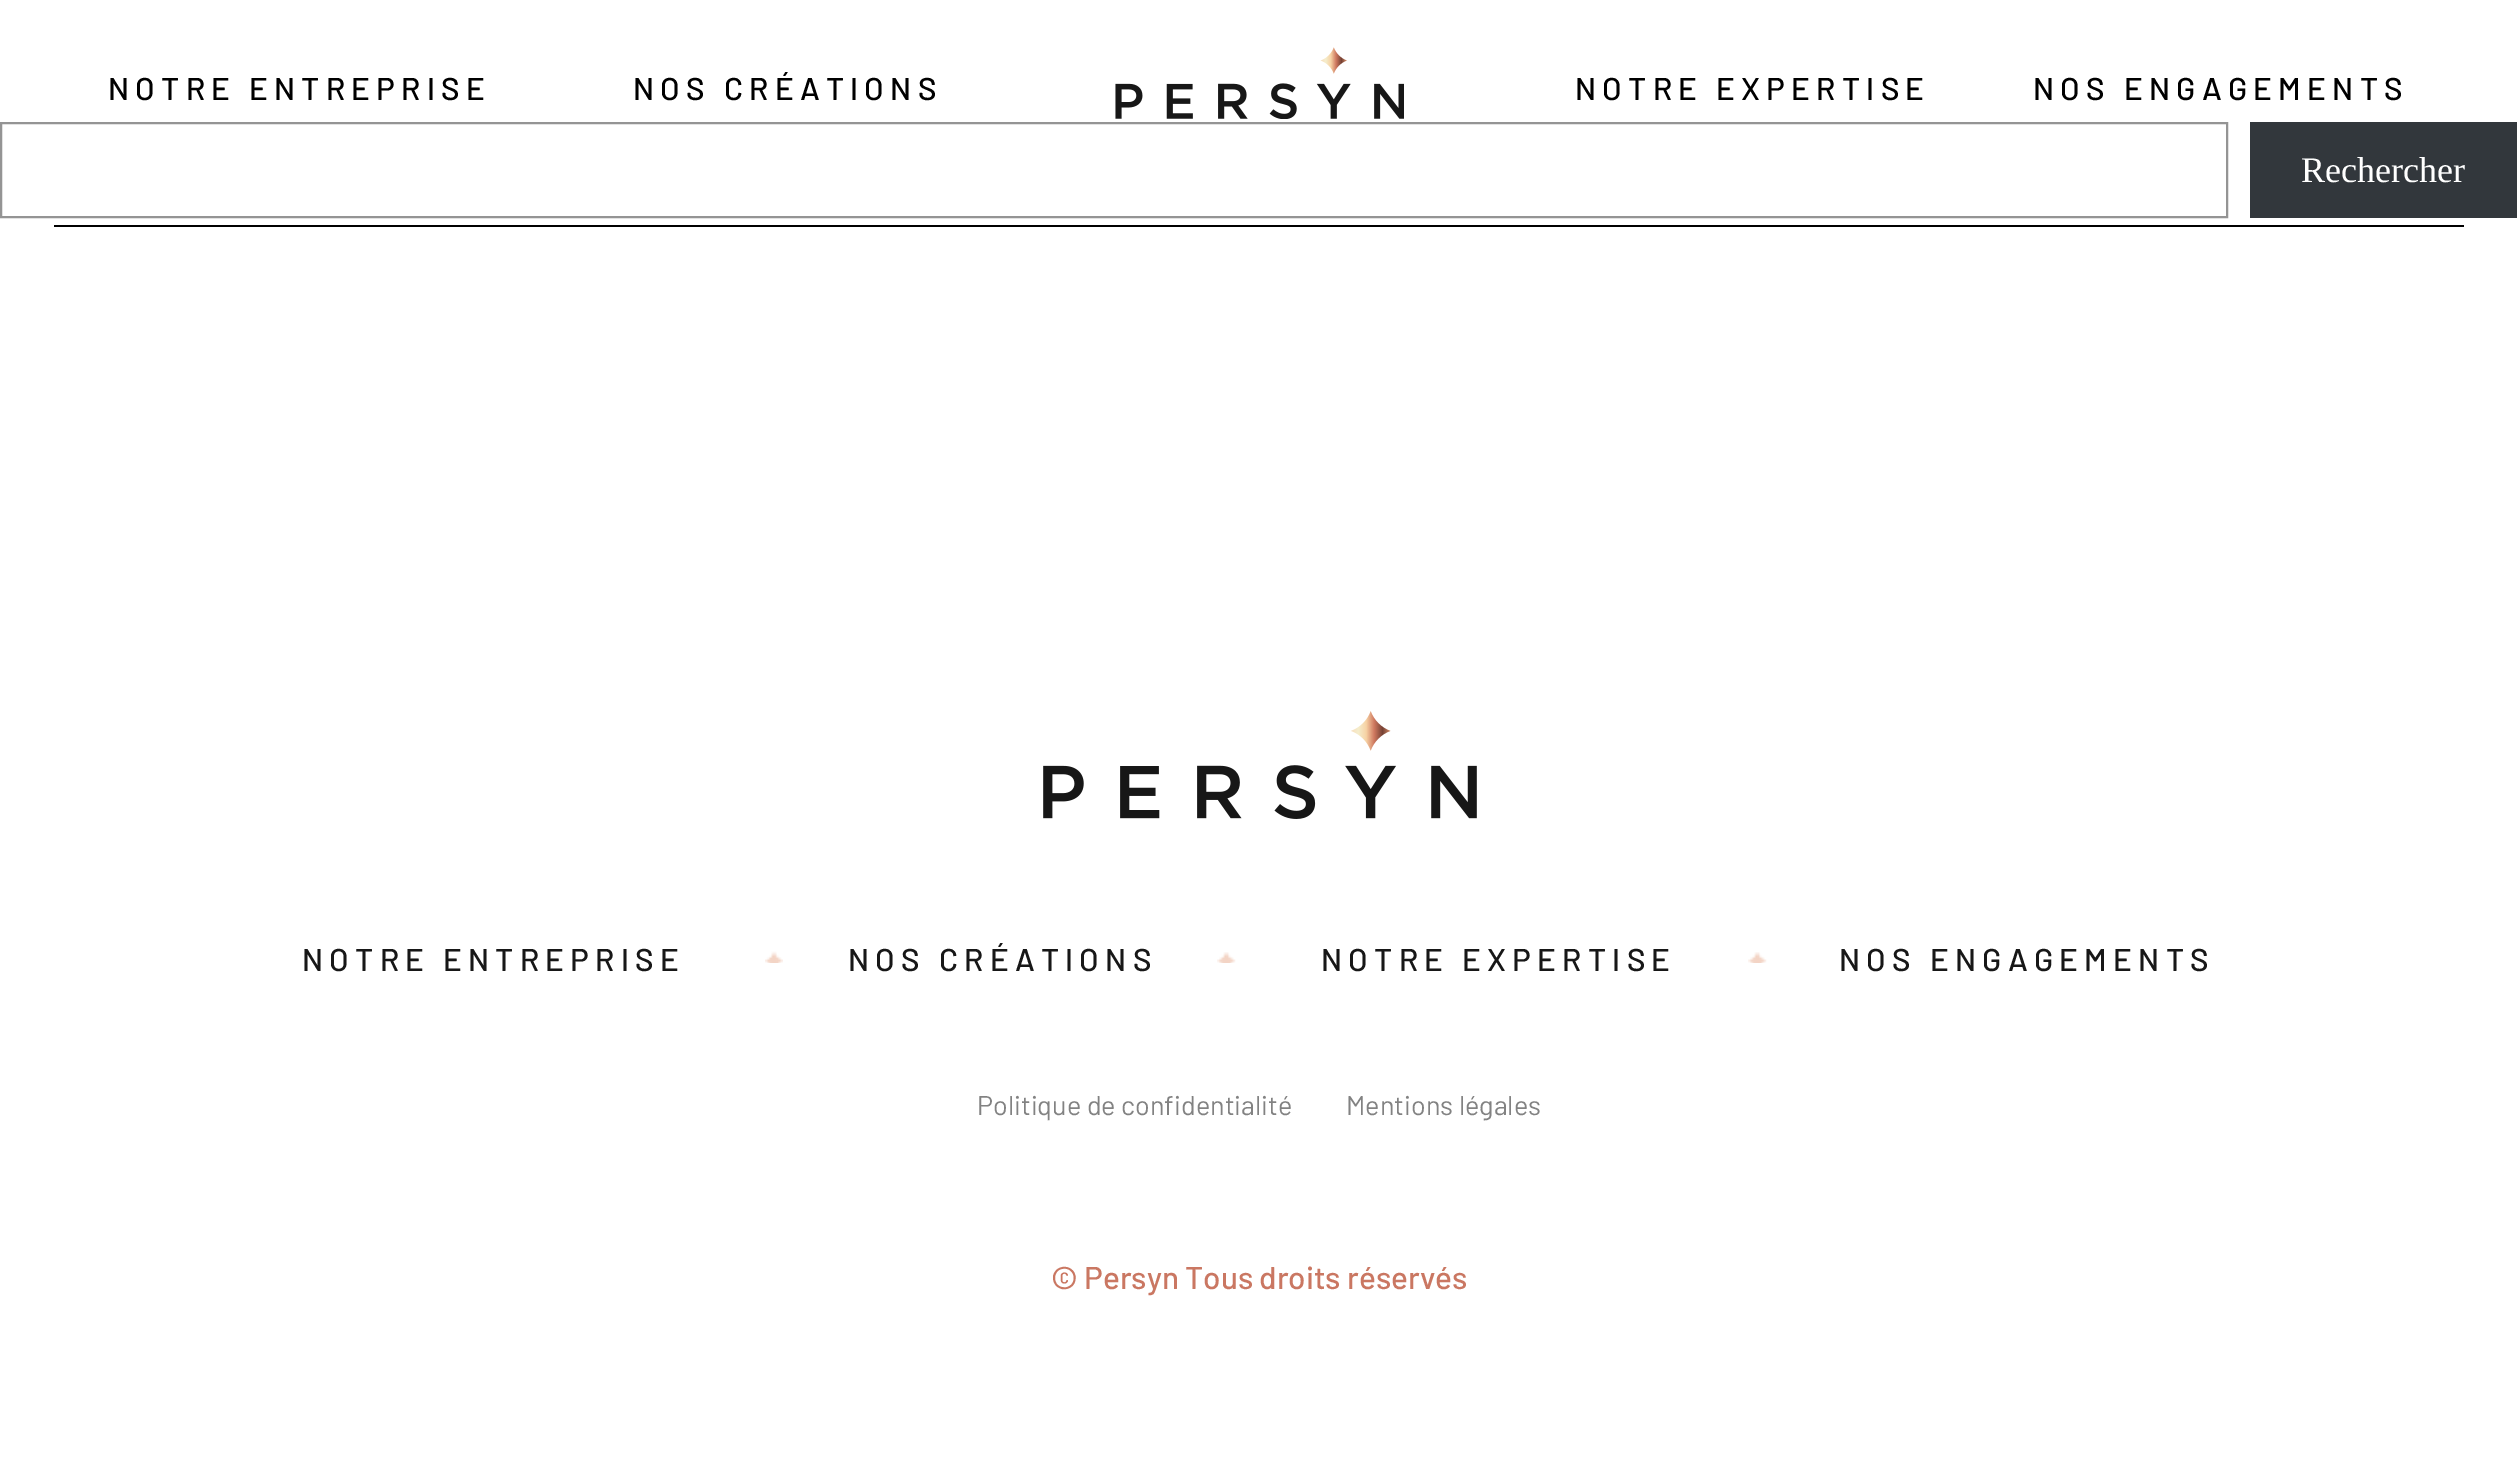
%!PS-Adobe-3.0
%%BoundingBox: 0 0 2517 1467
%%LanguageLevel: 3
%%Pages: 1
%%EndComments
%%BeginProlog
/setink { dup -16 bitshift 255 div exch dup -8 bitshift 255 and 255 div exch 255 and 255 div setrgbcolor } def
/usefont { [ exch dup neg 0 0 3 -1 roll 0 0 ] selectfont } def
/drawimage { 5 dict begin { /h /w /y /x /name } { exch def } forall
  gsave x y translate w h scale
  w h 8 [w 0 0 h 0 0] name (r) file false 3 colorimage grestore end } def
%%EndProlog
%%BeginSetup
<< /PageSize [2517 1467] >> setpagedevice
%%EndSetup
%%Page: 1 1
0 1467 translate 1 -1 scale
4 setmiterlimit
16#FFFFFF setink
0 0 2517 1467 rectfill
16#000000 setink
54 225 2410 2 rectfill
/Barlow-Medium 31.5 usefont
108 100 moveto 6.25 0 (NOTRE ENTREPRISE) ashow
633 100 moveto 6.25 0 (NOS CRÉATIONS) ashow
(img1.raw) 1115 47 289 72 drawimage
1575 100 moveto 6.25 0 (NOTRE EXPERTISE) ashow
2033 100 moveto 6.25 0 (NOS ENGAGEMENTS) ashow
16#949494 setink
2 setlinewidth
1 123 2226 94 rectstroke
16#32373C setink
2250 122 267 96 rectfill
/LiberationSerif-Regular 36 usefont
16#FFFFFF setink
2301 182 moveto (Rechercher) show
(img2.raw) 1043 711 434 108 drawimage
/Barlow-Medium 31.5 usefont
16#171717 setink
302 971 moveto 6.25 0 (NOTRE ENTREPRISE) ashow
(img3.raw) 765 951 18 12 drawimage
848 971 moveto 6.25 0 (NOS CRÉATIONS) ashow
(img4.raw) 1217 952 19 11 drawimage
1321 971 moveto 6.25 0 (NOTRE EXPERTISE) ashow
(img4.raw) 1748 952 19 11 drawimage
1839 971 moveto 6.25 0 (NOS ENGAGEMENTS) ashow
/Barlow-Regular 27 usefont
16#828282 setink
977 1115 moveto (Politique de confidentialité) show
1346 1115 moveto (Mentions légales) show
/Barlow-Medium 31.5 usefont
16#CA7762 setink
1051 1289 moveto (© Persyn Tous droits réservés) show
showpage
%%EOF
